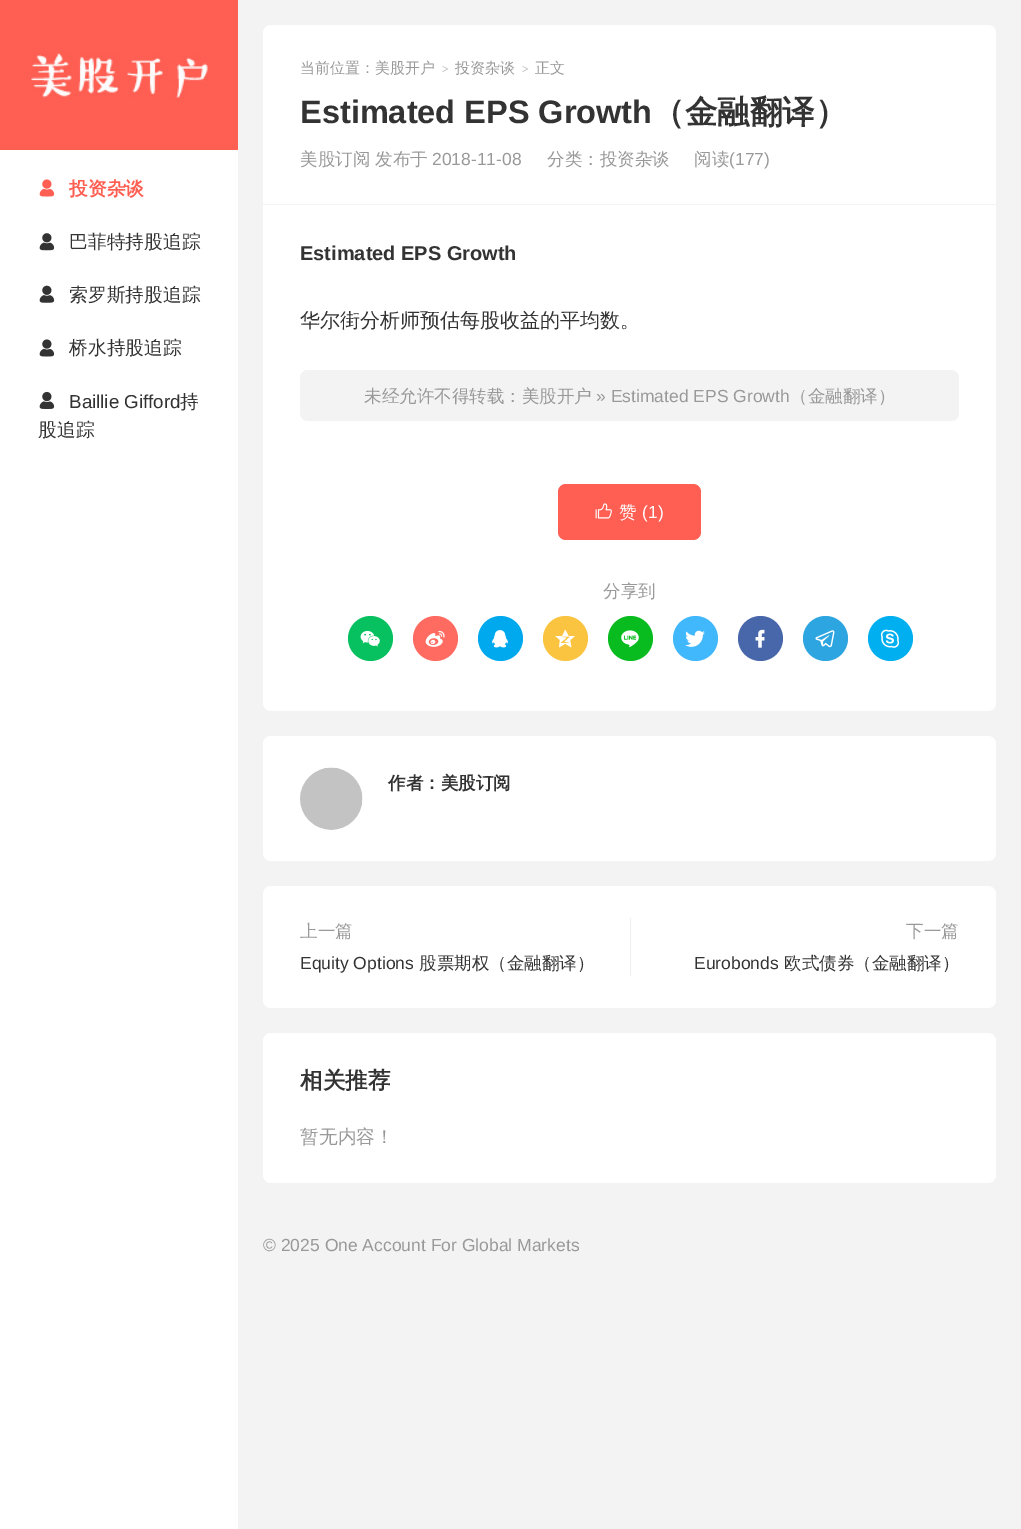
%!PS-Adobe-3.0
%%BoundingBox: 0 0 1021 1529
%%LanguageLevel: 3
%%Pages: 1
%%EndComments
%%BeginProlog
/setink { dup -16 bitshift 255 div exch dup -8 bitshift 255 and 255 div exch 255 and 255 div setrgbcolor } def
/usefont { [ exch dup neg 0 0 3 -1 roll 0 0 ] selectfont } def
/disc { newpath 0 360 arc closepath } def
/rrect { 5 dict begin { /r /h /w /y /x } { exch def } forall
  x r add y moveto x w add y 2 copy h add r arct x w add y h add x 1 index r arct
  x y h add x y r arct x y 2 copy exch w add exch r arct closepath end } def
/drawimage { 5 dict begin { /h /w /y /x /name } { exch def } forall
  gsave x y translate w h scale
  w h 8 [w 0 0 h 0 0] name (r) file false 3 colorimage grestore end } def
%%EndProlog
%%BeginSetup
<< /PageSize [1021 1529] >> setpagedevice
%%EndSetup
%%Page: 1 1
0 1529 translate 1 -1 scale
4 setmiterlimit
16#F3F3F3 setink
0 0 1021 1529 rectfill
16#FFFFFF setink
0 150 238 1379 rectfill
16#FF5E52 setink
0 0 238 150 rectfill
(img1.raw) 31 53 177 45 drawimage
(img2.raw) 39 179 16 18 drawimage
/WenQuanYiZenHei-Bold 18.75 usefont
69 195 moveto (投资杂谈) show
(img3.raw) 39 233 16 18 drawimage
/WenQuanYiZenHei-Medium 18.75 usefont
16#333333 setink
69 248 moveto (巴菲特持股追踪) show
(img4.raw) 39 285 16 18 drawimage
69 301 moveto (索罗斯持股追踪) show
(img5.raw) 39 339 16 18 drawimage
69 354 moveto (桥水持股追踪) show
(img6.raw) 39 391 16 18 drawimage
/LiberationSans-Regular 18.75 usefont
69 408 moveto (Baillie Gifford) show
/WenQuanYiZenHei-Medium 18.75 usefont
180 408 moveto (持) show
38 436 moveto (股追踪) show
16#FFFFFF setink
271 25 moveto 988 25 lineto 992.5 25 996 28.5 996 33 curveto 996 205 lineto 263 205 lineto 263 33 lineto 263 28.5 266.5 25 271 25 curveto closepath fill
16#F3F3F3 setink
263 204 733 1 rectfill
/WenQuanYiZenHei-Medium 15 usefont
16#999999 setink
300 73 moveto (当前位置：美股开户) show
/LiberationSerif-Bold 12 usefont
16#BBBBBB setink
442 73 moveto (>) show
/WenQuanYiZenHei-Medium 15 usefont
16#999999 setink
455 73 moveto (投资杂谈) show
/LiberationSerif-Bold 12 usefont
16#BBBBBB setink
522 73 moveto (>) show
/WenQuanYiZenHei-Medium 15 usefont
16#999999 setink
535 73 moveto (正文) show
/LiberationSans-Bold 32.5 usefont
16#333333 setink
300 123 moveto (Estimated EPS Growth) show
/WenQuanYiZenHei-Bold 32.5 usefont
652 123 moveto (（金融翻译）) show
/WenQuanYiZenHei-Medium 17.5 usefont
16#999999 setink
300 165 moveto (美股订阅) show
375 165 moveto (发布于) show
/LiberationSans-Regular 17.5 usefont
432 165 moveto (2018-11-08) show
/WenQuanYiZenHei-Medium 17.5 usefont
547 165 moveto (分类：投资杂谈) show
694 165 moveto (阅读) show
/LiberationSans-Regular 17.5 usefont
729 165 moveto (\(177\)) show
16#FFFFFF setink
263 205 733 279 rectfill
/LiberationSans-Bold 20 usefont
16#333333 setink
300 260 moveto (Estimated EPS Growth) show
/WenQuanYiZenHei-Medium 20 usefont
300 327 moveto (华尔街分析师预估每股收益的平均数。) show
16#F3F3F3 setink
300 370 659 51 8 rrect fill
/WenQuanYiZenHei-Medium 17.5 usefont
16#999999 setink
364 402 moveto (未经允许不得转载：美股开户) show
/LiberationSans-Regular 17.5 usefont
596 402 moveto (» Estimated EPS Growth) show
/WenQuanYiZenHei-Medium 17.5 usefont
790 402 moveto (（金融翻译）) show
16#FFFFFF setink
263 484 moveto 996 484 lineto 996 703 lineto 996 707.5 992.5 711 988 711 curveto 271 711 lineto 266.5 711 263 707.5 263 703 curveto closepath fill
16#FF5E52 setink
558 484 143 56 8 rrect fill
(img7.raw) 595 503 17 16 drawimage
16#FFFFFF setink
619 518 moveto (赞) show
/LiberationSans-Regular 17.5 usefont
642 518 moveto (\(1\)) show
/WenQuanYiZenHei-Medium 17.5 usefont
16#999999 setink
603 597 moveto (分享到) show
16#07C160 setink
370.5 638.5 22.5 disc fill
(img8.raw) 360 630 20 17 drawimage
16#FF6B60 setink
435.5 638.5 22.5 disc fill
(img9.raw) 425 630 20 17 drawimage
16#00A9EE setink
500.5 638.5 22.5 disc fill
(img10.raw) 492 630 16 18 drawimage
16#FBC440 setink
565.5 638.5 22.5 disc fill
(img11.raw) 555 629 20 19 drawimage
16#08BC1F setink
630.5 638.5 22.5 disc fill
(img12.raw) 621 630 18 18 drawimage
16#41B8FC setink
695.5 638.5 22.5 disc fill
(img13.raw) 685 630 20 17 drawimage
16#4867AA setink
760.5 638.5 22.5 disc fill
(img14.raw) 755 629 10 19 drawimage
16#2CA5E0 setink
825.5 638.5 22.5 disc fill
(img15.raw) 815 630 20 18 drawimage
16#00AFF0 setink
890.5 638.5 22.5 disc fill
(img16.raw) 880 629 20 19 drawimage
16#FFFFFF setink
263 736 733 125 8 rrect fill
(img17.raw) 300 767 63 63 drawimage
/WenQuanYiZenHei-Bold 17.5 usefont
16#333333 setink
388 789 moveto (作者：美股订阅) show
16#FFFFFF setink
263 886 733 122 8 rrect fill
/WenQuanYiZenHei-Medium 17.5 usefont
16#999999 setink
300 937 moveto (上一篇) show
16#EEEEEE setink
630 918 1 58 rectfill
/LiberationSans-Regular 17.5 usefont
16#333333 setink
300 969 moveto (Equity Options) show
/WenQuanYiZenHei-Medium 17.5 usefont
419 969 moveto (股票期权（金融翻译）) show
16#999999 setink
906 937 moveto (下一篇) show
/LiberationSans-Regular 17.5 usefont
16#333333 setink
694 969 moveto (Eurobonds) show
/WenQuanYiZenHei-Medium 17.5 usefont
784 969 moveto (欧式债券（金融翻译）) show
16#FFFFFF setink
263 1033 733 150 8 rrect fill
/WenQuanYiZenHei-Bold 22.5 usefont
16#333333 setink
300 1088 moveto (相关推荐) show
/WenQuanYiZenHei-Medium 18.75 usefont
16#999999 setink
300 1143 moveto (暂无内容！) show
/LiberationSans-Regular 17.5 usefont
263 1251 moveto (© 2025 One Account For Global Markets) show
showpage
%%EOF
